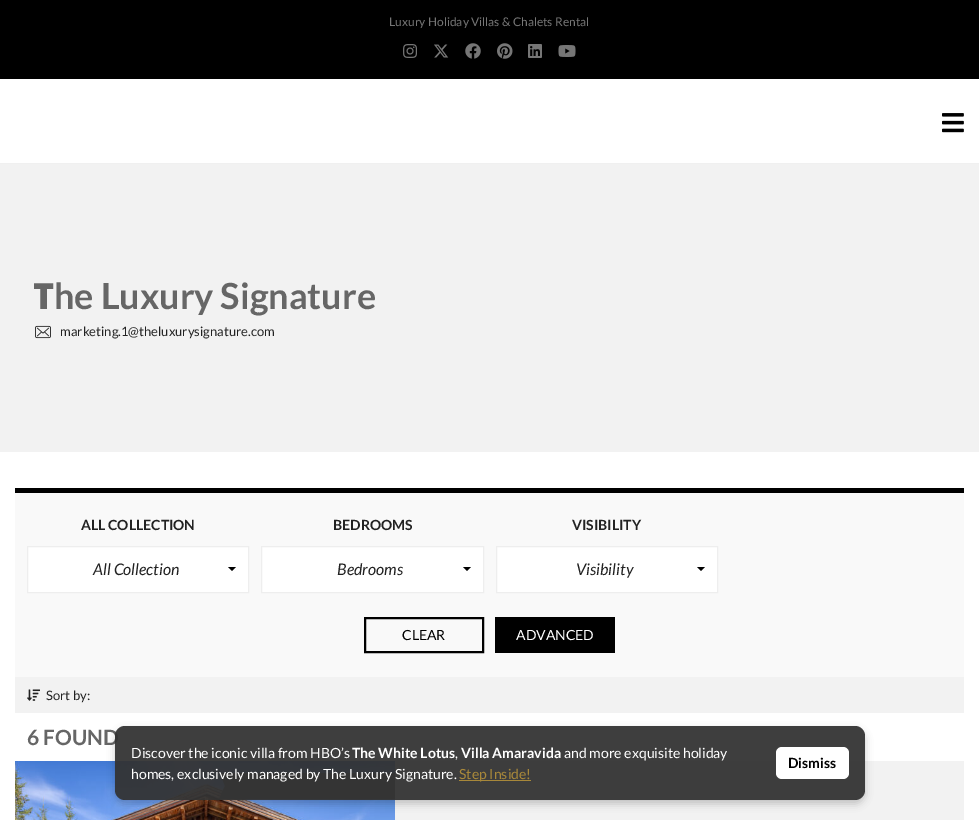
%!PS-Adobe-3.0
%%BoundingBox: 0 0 979 820
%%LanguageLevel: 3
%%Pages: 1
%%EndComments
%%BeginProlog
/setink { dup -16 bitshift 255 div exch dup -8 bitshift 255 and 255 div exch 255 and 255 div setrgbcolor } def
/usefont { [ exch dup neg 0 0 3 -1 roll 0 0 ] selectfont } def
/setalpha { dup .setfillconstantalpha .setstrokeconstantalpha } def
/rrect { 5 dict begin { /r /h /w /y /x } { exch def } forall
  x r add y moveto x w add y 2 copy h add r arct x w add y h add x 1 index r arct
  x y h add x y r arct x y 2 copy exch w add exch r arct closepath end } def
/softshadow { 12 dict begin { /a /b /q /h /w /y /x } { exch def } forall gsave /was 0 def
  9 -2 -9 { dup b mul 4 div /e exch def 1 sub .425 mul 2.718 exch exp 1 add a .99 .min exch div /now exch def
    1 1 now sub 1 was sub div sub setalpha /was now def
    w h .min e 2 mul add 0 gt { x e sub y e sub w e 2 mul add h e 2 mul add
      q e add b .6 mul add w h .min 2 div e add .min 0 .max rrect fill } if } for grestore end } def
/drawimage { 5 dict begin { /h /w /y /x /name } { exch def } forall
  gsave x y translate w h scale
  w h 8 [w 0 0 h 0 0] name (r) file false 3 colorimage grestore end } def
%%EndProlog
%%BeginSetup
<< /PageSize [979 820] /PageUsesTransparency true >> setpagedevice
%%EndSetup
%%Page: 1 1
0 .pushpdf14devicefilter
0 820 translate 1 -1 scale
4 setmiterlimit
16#FFFFFF setink
0 0 979 820 rectfill
16#000000 setink
0 0 979 79 rectfill
/Lato-Regular 12 usefont
16#767676 setink
389 26 moveto (Luxury Holiday Villas & Chalets Rental) show
(img1.raw) 403 44 14 14 drawimage
(img2.raw) 434 44 15 14 drawimage
(img3.raw) 465 43 16 16 drawimage
(img4.raw) 497 43 16 16 drawimage
(img5.raw) 528 44 14 14 drawimage
(img6.raw) 558 45 18 12 drawimage
(img7.raw) 942 113 22 20 drawimage
16#F0F0F0 setink
0 163 979 1 rectfill
16#F2F2F2 setink
0 164 979 288 rectfill
/NotoSans-Black 36 usefont
16#666666 setink
33 309 moveto (T) show
/Lato-Bold 36 usefont
54 309 moveto (he Luxury Signature) show
(img8.raw) 35 325 16 14 drawimage
/Lato-Regular 13 usefont
16#222222 setink
60 336 moveto (marketing.1@theluxurysignature.com) show
16#F9F9F9 setink
15 493 949 184 rectfill
16#000000 setink
15 488 949 5 rectfill
/Lato-Bold 14 usefont
16#222222 setink
81 530 moveto (ALL COLLECTION) show
16#FFFFFF setink
27.5 546.5 moveto 248.5 546.5 lineto 248.5 592.5 lineto 27.5 592.5 lineto closepath gsave fill grestore
16#EEEEEE setink
stroke
/Lato-Italic 16 usefont
16#222222 setink
93 575 moveto (All Collection) show
16#000000 setink
228 567 moveto 236 567 lineto 232 571 lineto closepath fill
/Lato-Bold 14 usefont
16#222222 setink
333 530 moveto (BEDROOMS) show
16#FFFFFF setink
261.5 546.5 moveto 483.5 546.5 lineto 483.5 592.5 lineto 261.5 592.5 lineto closepath gsave fill grestore
16#EEEEEE setink
stroke
/Lato-Italic 16 usefont
16#222222 setink
337 575 moveto (Bedrooms) show
16#000000 setink
463 567 moveto 471 567 lineto 467 571 lineto closepath fill
/Lato-Bold 14 usefont
16#222222 setink
572 530 moveto (VISIBILITY) show
16#FFFFFF setink
496.5 546.5 moveto 717.5 546.5 lineto 717.5 592.5 lineto 496.5 592.5 lineto closepath gsave fill grestore
16#EEEEEE setink
stroke
/Lato-Italic 16 usefont
16#222222 setink
576 575 moveto (Visibility) show
16#000000 setink
697 567 moveto 705 567 lineto 701 571 lineto closepath fill
2 setlinewidth
365 618 118 34 rectstroke
/Lato-Regular 14 usefont
402 640 moveto (CLEAR) show
495 617 120 36 rectfill
16#FFFFFF setink
516 640 moveto (ADVANCED) show
16#F2F2F2 setink
15 677 949 36 rectfill
(img9.raw) 27 689 13 12 drawimage
/Lato-Regular 13 usefont
16#222222 setink
46 700 moveto (Sort by:) show
/Lato-Bold 21 usefont
16#666666 setink
27 745 moveto (6 FOUND) show
16#F2F2F2 setink
395 761 569 59 rectfill
(img10.raw) 15 761 380 59 drawimage
16#535353 setink
395 773 moveto 395 799 lineto 219 799 lineto 225 786 lineto 220 773 lineto closepath fill
gsave
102 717 moveto 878 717 lineto 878 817 lineto 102 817 lineto closepath 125 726 moveto 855 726 lineto 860.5 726 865 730.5 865 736 curveto 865 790 lineto 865 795.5 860.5 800 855 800 curveto 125 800 lineto 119.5 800 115 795.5 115 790 curveto 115 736 lineto 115 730.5 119.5 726 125 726 curveto closepath eoclip newpath
16#000000 setink
115 730 750 74 10 4 0.2 softshadow
grestore
0.94 setalpha
16#323232 setink
115 726 750 74 10 rrect fill
/Lato-Regular 14 usefont
1 setalpha
16#FFFFFF setink
131 758 moveto (Discover the iconic villa from HBO’s) show
/Lato-Bold 14 usefont
352 758 moveto (The White Lotus) show
/Lato-Regular 14 usefont
455 758 moveto (,) show
/Lato-Bold 14 usefont
461 758 moveto (Villa Amaravida) show
/Lato-Regular 14 usefont
564 758 moveto (and more exquisite holiday) show
131 779 moveto (homes, exclusively managed by The Luxury Signature.) show
16#A8883A setink
459 780 72 1 rectfill
459 779 moveto (Step Inside!) show
16#FFFFFF setink
776 747 73 32 6 rrect fill
/Lato-Bold 14 usefont
16#000000 setink
788 768 moveto (Dismiss) show
.poppdf14devicefilter showpage
%%EOF
